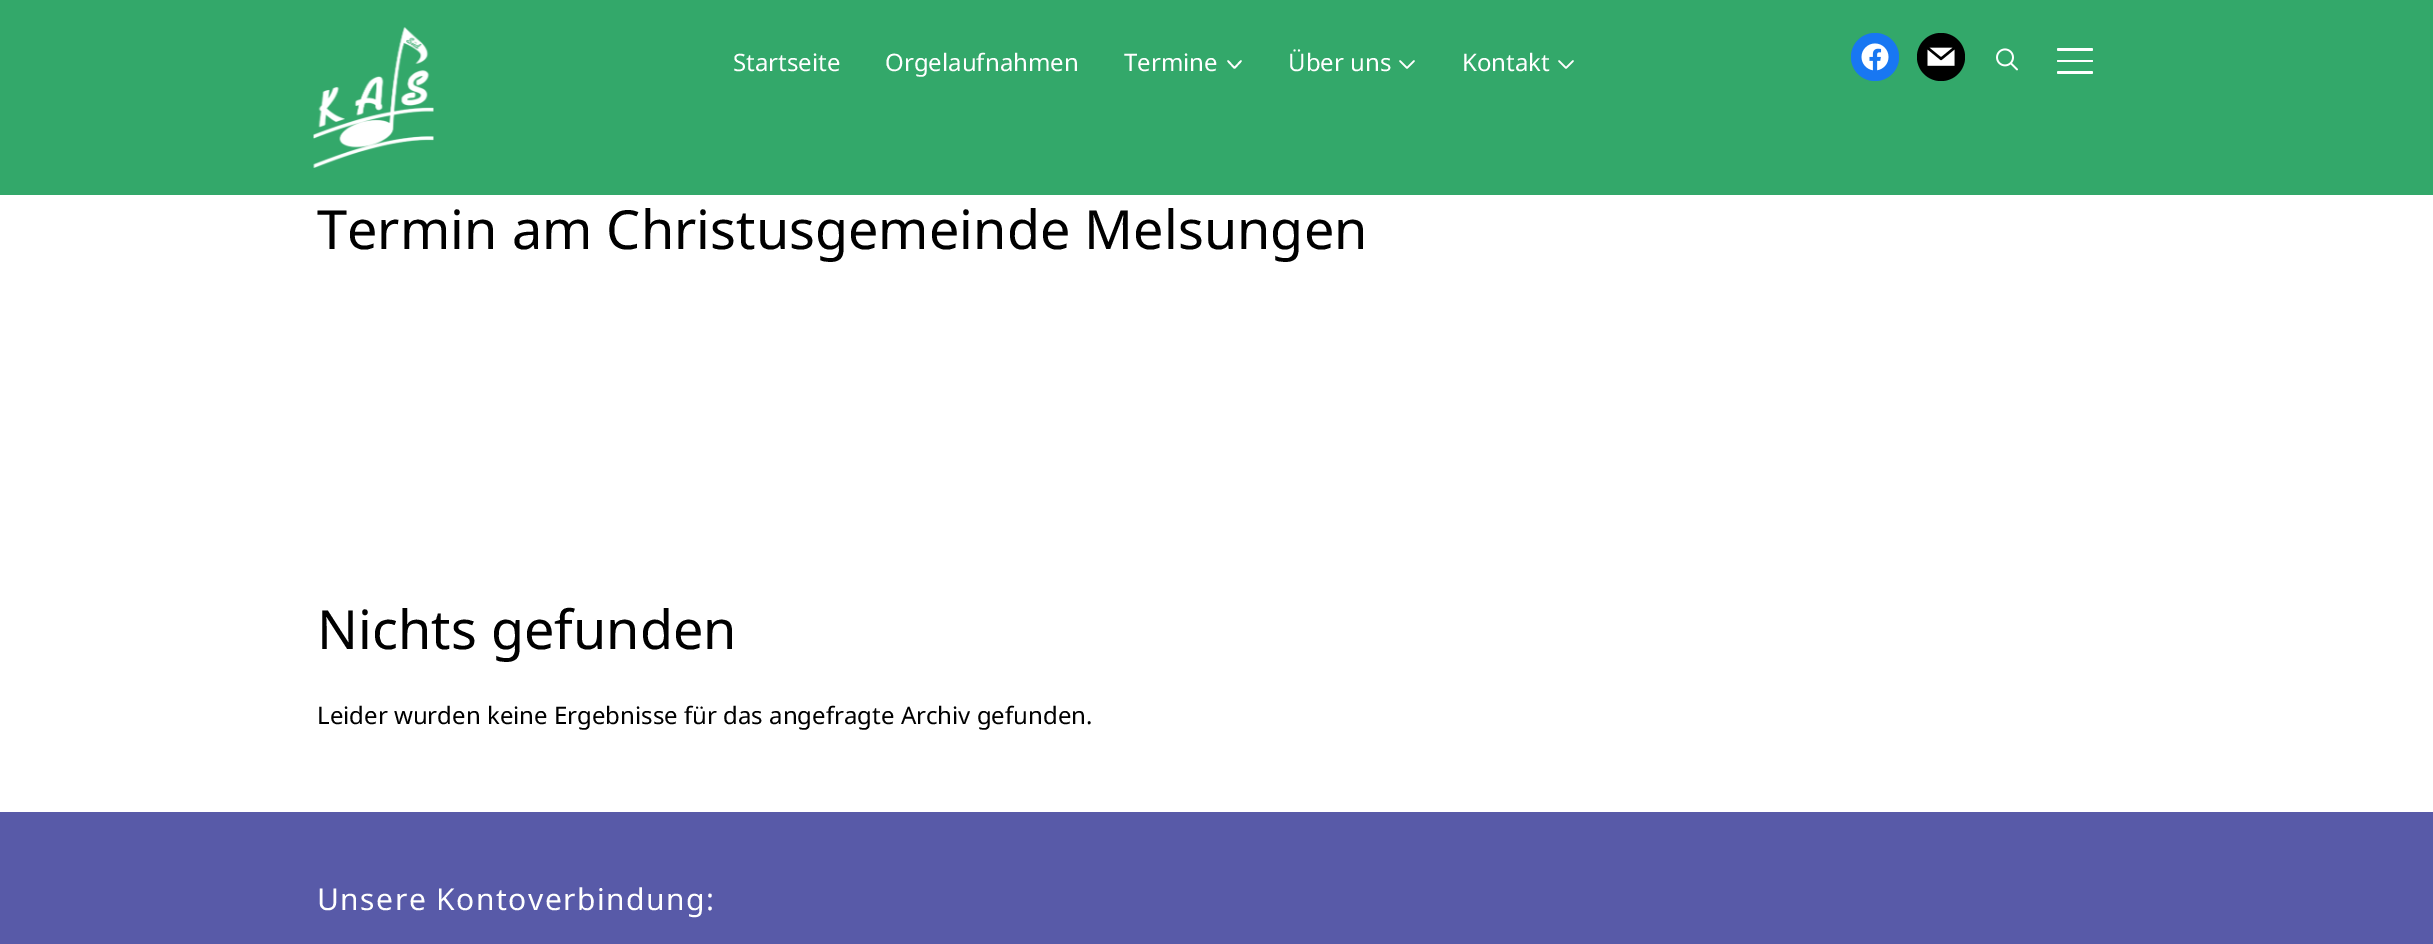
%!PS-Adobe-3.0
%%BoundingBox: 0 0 2433 944
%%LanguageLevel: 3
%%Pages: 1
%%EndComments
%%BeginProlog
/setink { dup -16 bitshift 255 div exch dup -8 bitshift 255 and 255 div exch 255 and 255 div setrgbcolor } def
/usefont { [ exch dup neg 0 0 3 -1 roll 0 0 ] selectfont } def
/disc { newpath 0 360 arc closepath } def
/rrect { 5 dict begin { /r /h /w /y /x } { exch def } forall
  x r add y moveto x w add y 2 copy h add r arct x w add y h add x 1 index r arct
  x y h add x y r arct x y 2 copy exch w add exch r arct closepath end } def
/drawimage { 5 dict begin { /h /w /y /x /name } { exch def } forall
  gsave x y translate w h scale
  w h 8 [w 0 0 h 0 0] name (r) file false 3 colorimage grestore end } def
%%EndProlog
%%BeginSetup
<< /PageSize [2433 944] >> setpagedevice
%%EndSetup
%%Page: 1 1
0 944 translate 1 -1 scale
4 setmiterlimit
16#FFFFFF setink
0 0 2433 944 rectfill
16#33A86A setink
0 0 2433 195 rectfill
(img1.raw) 313 27 121 141 drawimage
/NotoSans-Regular 24 usefont
16#FFFFFF setink
[
    [(Startseite) 733 71]
    [(Orgelaufnahmen) 885 71]
    [(Termine) 1124 71]
] { aload pop moveto show } forall
1.7 setlinewidth
1 setlinecap
1 setlinejoin
1228 61 moveto 1234.5 68 lineto 1241 61 lineto stroke
1288 71 moveto (Über uns) show
1400 61 moveto 1407 68 lineto 1414 61 lineto stroke
1462 71 moveto (Kontakt) show
1559 61 moveto 1566 68 lineto 1573 61 lineto stroke
16#1877F2 setink
1875 57 24 disc fill
(img2.raw) 1861 43 28 28 drawimage
16#000000 setink
1941 57 24 disc fill
(img3.raw) 1927 47 28 19 drawimage
(img4.raw) 1996 48 22 23 drawimage
16#FFFFFF setink
2057 48 36 3 1.5 rrect fill
2057 60 36 2 1 rrect fill
2057 71 36 3 1.5 rrect fill
/NotoSans-Regular 54 usefont
16#000000 setink
317 249 moveto (Termin am Christusgemeinde Melsungen) show
317 649 moveto (Nichts gefunden) show
/NotoSans-Regular 24 usefont
317 724 moveto (Leider wurden keine Ergebnisse für das angefragte Archiv gefunden.) show
16#585AA8 setink
0 812 2433 132 rectfill
/NotoSans-Regular 30 usefont
16#FFFFFF setink
317 910 moveto 1.5 0 (Unsere Kontoverbindung:) ashow
showpage
%%EOF
